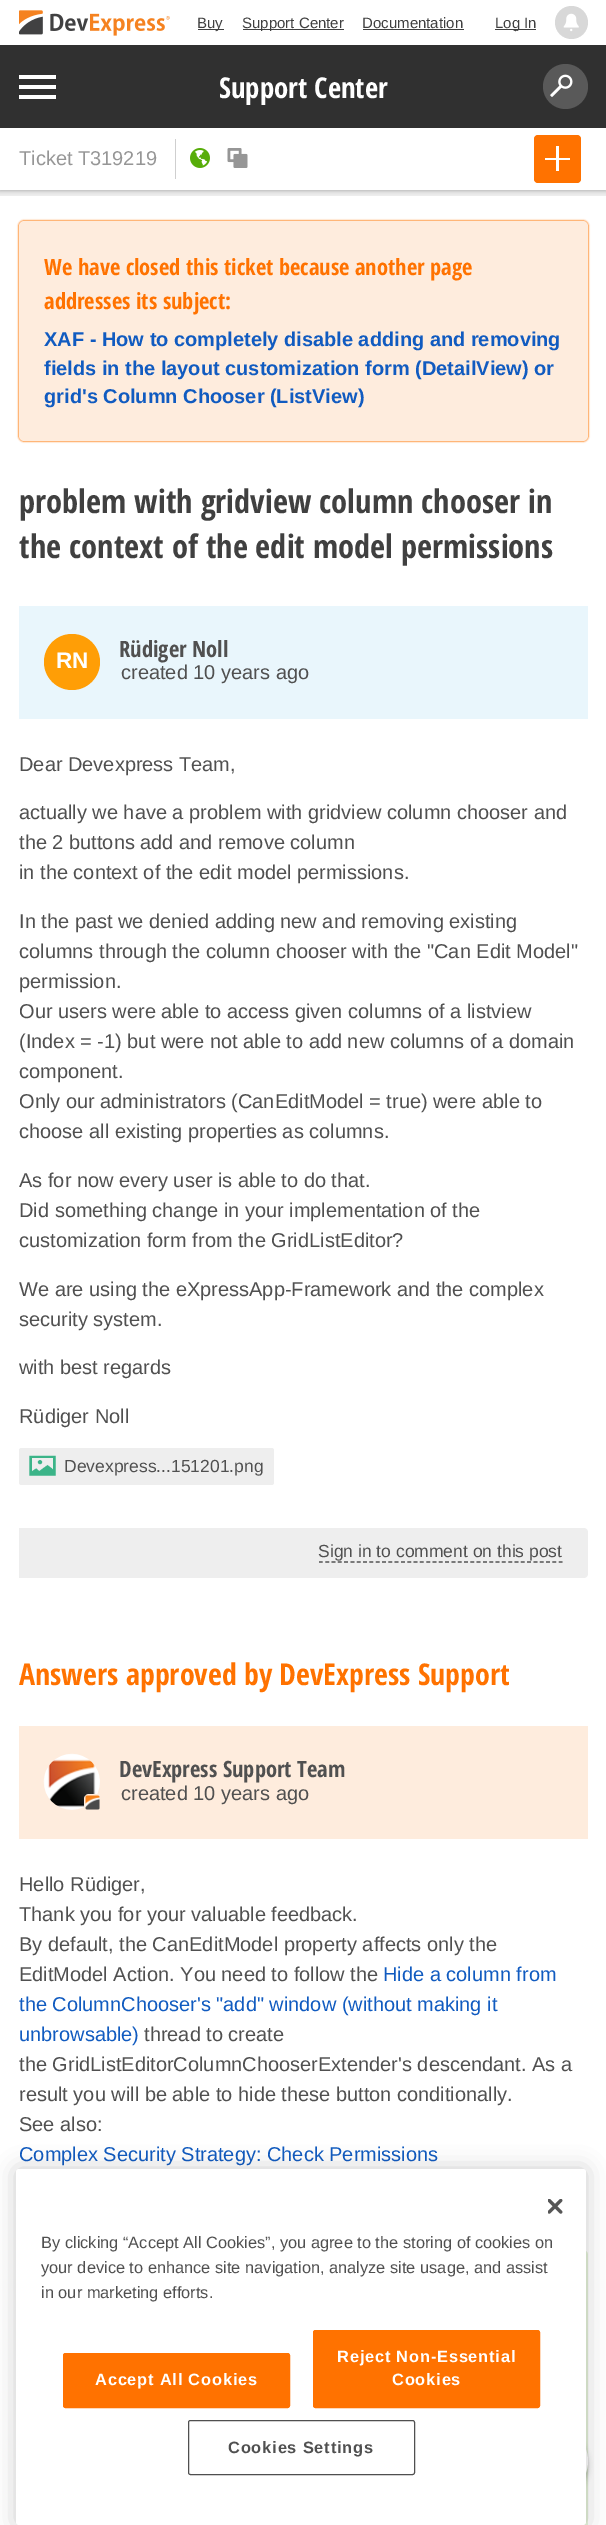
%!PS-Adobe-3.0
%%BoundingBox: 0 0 606 2525
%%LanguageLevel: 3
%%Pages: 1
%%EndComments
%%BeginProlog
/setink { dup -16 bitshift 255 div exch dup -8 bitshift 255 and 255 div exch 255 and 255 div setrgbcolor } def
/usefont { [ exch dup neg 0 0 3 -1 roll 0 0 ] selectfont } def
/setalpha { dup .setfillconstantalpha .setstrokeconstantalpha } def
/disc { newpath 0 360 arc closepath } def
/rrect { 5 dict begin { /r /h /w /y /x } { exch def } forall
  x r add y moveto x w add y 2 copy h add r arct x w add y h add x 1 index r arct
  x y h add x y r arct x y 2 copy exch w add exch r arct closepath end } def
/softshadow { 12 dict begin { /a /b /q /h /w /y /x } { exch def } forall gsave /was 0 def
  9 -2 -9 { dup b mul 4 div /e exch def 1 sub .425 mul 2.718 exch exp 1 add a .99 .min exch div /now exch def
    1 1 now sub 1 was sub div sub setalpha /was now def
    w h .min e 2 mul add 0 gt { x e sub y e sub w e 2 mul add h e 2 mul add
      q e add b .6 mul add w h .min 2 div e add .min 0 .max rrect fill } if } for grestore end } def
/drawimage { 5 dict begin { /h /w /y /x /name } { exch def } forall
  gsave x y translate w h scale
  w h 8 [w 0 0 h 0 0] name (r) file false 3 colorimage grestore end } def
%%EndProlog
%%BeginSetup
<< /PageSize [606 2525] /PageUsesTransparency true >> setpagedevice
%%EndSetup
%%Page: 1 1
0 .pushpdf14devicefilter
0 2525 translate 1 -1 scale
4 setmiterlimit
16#EEEEEE setink
0 0 606 2525 rectfill
16#FFFFFF setink
0 0 606 45 rectfill
(img1.raw) 19 10 151 26 drawimage
16#404040 setink
198 29 26 1 rectfill
/LiberationSans-Regular 15 usefont
197 28 moveto (Buy) show
243 29 101 1 rectfill
242 28 moveto (Support Center) show
362 28 moveto (Documentation) show
363 29 101 1 rectfill
495 29 41 1 rectfill
495 28 moveto (Log In) show
16#D8D8D8 setink
571.5 22.5 16.5 disc fill
(img2.raw) 563 13 16 19 drawimage
16#FFFFFF setink
0 196 606 2329 rectfill
16#000000 setink
0 129 606 62 0 2 0.25 softshadow
[
    [0 45 606 83 16#303030]
    [19 75 37 4 16#FFFFFF]
    [19 85 37 4 16#FFFFFF]
    [19 95 37 4 16#FFFFFF]
] { aload pop setink rectfill } forall
/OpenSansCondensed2-Bold 28.75 usefont
219 98 moveto (Support Center) show
16#595959 setink
565.5 86.5 22.5 disc fill
(img3.raw) 550 74 23 23 drawimage
16#FFFFFF setink
0 128 606 62 rectfill
/LiberationSans-Regular 20 usefont
16#969696 setink
19 165 moveto (Ticket T319219) show
16#CFCFCF setink
175 139 1 40 rectfill
(img4.raw) 190 148 20 20 drawimage
(img5.raw) 227 148 21 20 drawimage
16#FF7200 setink
534 135 47 48 4 rrect fill
16#FFFFFF setink
545 158 25 2 rectfill
556 146 3 25 rectfill
16#FF7200 setink
19 221 569 220 5 1 1 softshadow
19 221 569 220 5 1 1 softshadow
16#FEECDD setink
19 221 569 220 5 rrect fill
/OpenSansCondensed-Bold 22.5 usefont
16#FF7200 setink
44 275 moveto (We have closed this ticket because another page) show
44 309 moveto (addresses its subject:) show
/LiberationSans-Bold 20 usefont
16#115BC0 setink
[
    [(XAF - How to completely disable adding and removing) 44 346]
    [(fields in the layout customization form \(DetailView\) or) 44 375]
    [(grid's Column Chooser \(ListView\)) 44 403]
] { aload pop moveto show } forall
/OpenSansCondensed-Bold 32.5 usefont
16#404040 setink
19 513 moveto (problem with gridview column chooser in) show
19 558 moveto (the context of the edit model permissions) show
16#E9F6FC setink
19 606 569 113 rectfill
16#FF9E06 setink
72 662 28 disc fill
/LiberationSans-Bold 22.5 usefont
16#FFFFFF setink
56 668 moveto (RN) show
/OpenSansCondensed-Bold 22.5 usefont
16#505050 setink
119 657 moveto (Rüdiger Noll) show
/LiberationSans-Regular 20 usefont
[
    [(created 10 years ago) 121 679]
    [(Dear Devexpress Team,) 19 771]
    [(actually we have a problem with gridview column chooser and) 19 819]
    [(the 2 buttons add and remove column) 19 849]
    [(in the context of the edit model permissions.) 19 879]
    [(In the past we denied adding new and removing existing) 19 928]
    [(columns through the column chooser with the "Can Edit Model") 19 958]
    [(permission.) 19 988]
    [(Our users were able to access given columns of a listview) 19 1018]
    [(\(Index = -1\) but were not able to add new columns of a domain) 19 1048]
    [(component.) 19 1078]
    [(Only our administrators \(CanEditModel = true\) were able to) 19 1108]
    [(choose all existing properties as columns.) 19 1138]
    [(As for now every user is able to do that.) 19 1187]
    [(Did something change in your implementation of the) 19 1217]
    [(customization form from the GridListEditor?) 19 1247]
    [(We are using the eXpressApp-Framework and the complex) 19 1296]
    [(security system.) 19 1326]
    [(with best regards) 19 1374]
    [(Rüdiger Noll) 19 1423]
] { aload pop moveto show } forall
16#EEEEEE setink
19 1448 255 37 2.5 rrect fill
(img6.raw) 29 1455 27 21 drawimage
/LiberationSans-Regular 17.5 usefont
16#505050 setink
64 1472 moveto (Devexpress...151201.png) show
16#EEEEEE setink
19 1528 moveto 584 1528 lineto 586 1528 588 1530 588 1532 curveto 588 1574 lineto 588 1576 586 1578 584 1578 curveto 19 1578 lineto closepath fill
16#505050 setink
318 1557 moveto (Sign in to comment on this post) show
1.2 setlinewidth
[3.75 2.56] 0 setdash
319 1562 moveto 562.5 1562 lineto stroke
/OpenSansCondensed-Bold 30 usefont
16#FF7200 setink
19 1685 moveto (Answers approved by DevExpress Support) show
16#FEECDD setink
19 1726 569 113 rectfill
(img7.raw) 43 1753 57 57 drawimage
84 1794 17 17 5 rrect fill
(img8.raw) 85 1795 15 15 drawimage
/OpenSansCondensed-Bold 22.5 usefont
16#505050 setink
119 1777 moveto (DevExpress Support Team) show
/LiberationSans-Regular 20 usefont
[
    [(created 10 years ago) 121 1800]
    [(Hello Rüdiger,) 19 1891]
    [(Thank you for your valuable feedback.) 19 1921]
    [(By default, the CanEditModel property affects only the) 19 1951]
    [(EditModel Action. You need to follow the) 19 1981]
] { aload pop moveto show } forall
16#115BC0 setink
[
    [(Hide a column from) 383 1981]
    [(the ColumnChooser's "add" window \(without making it) 19 2011]
    [(unbrowsable\)) 19 2041]
] { aload pop moveto show } forall
16#505050 setink
[
    [(thread to create) 144 2041]
    [(the GridListEditorColumnChooserExtender's descendant. As a) 19 2071]
    [(result you will be able to hide these button conditionally.) 19 2101]
    [(See also:) 19 2131]
] { aload pop moveto show } forall
16#115BC0 setink
19 2161 moveto (Complex Security Strategy: Check Permissions) show
16#E6F3DB setink
19 2250 569 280 5 rrect fill
16#000000 setink
518 2430 70 70 35 2.5 0.25 softshadow
16#FFFFFF setink
553 2461 35 disc fill
16#000000 setink
16 2169 570 356 3 11 0.2 softshadow
16#FFFFFF setink
16 2169 570 356 3 rrect fill
(img9.raw) 548 2199 15 15 drawimage
/LiberationSans-Regular 16.4 usefont
16#505050 setink
[
    [(By clicking “Accept All Cookies”, you agree to the storing of cookies on) 41 2248]
    [(your device to enhance site navigation, analyze site usage, and assist) 41 2273]
    [(in our marketing efforts.) 41 2298]
] { aload pop moveto show } forall
16#FF7200 setink
63.5 2353.5 226 54 2 rrect gsave fill grestore
1 setlinewidth
[] 0 setdash
stroke
/LiberationSans-Bold 16.4 usefont
16#FFFFFF setink
95 2385 moveto 0.8 0 (Accept All Cookies) ashow
16#FF7200 setink
313.5 2330.5 226 77 2 rrect gsave fill grestore
stroke
16#FFFFFF setink
337 2362 moveto 0.8 0 (Reject Non-Essential) ashow
392 2385 moveto 0.8 0 (Cookies) ashow
16#505050 setink
188.5 2420.5 226 54 2 rrect stroke
228 2453 moveto 0.8 0 (Cookies Settings) ashow
.poppdf14devicefilter showpage
%%EOF
